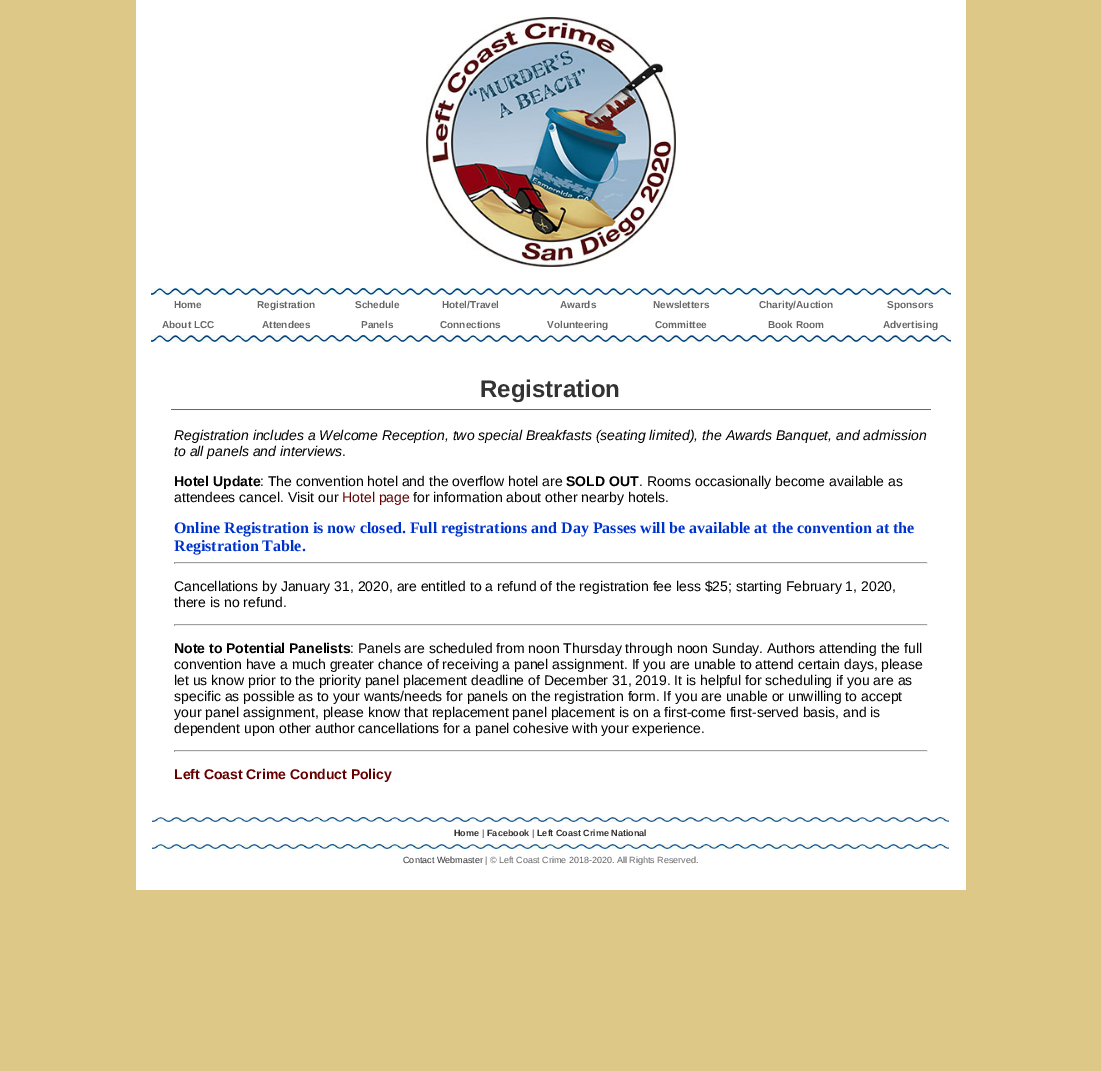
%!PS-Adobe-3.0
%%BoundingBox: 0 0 1101 1071
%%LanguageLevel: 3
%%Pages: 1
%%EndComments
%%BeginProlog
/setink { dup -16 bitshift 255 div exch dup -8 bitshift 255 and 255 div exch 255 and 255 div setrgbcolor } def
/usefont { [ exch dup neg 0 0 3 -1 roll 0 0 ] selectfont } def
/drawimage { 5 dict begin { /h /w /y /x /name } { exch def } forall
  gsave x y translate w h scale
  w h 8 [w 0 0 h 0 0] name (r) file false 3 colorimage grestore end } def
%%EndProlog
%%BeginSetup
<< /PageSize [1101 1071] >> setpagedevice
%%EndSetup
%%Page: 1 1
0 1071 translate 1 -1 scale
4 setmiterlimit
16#DDC887 setink
0 0 1101 1071 rectfill
16#FFFFFF setink
136 0 830 890 rectfill
(img1.raw) 426 17 250 250 drawimage
(img2.raw) 151 288 800 7 drawimage
/LiberationSans-Bold 10 usefont
16#666666 setink
[
    [(Home) 174 308]
    [(Registration) 257 308]
    [(Schedule) 355 308]
    [(Hotel/Travel) 442 308]
    [(Awards) 560 308]
    [(Newsletters) 653 308]
    [(Charity/Auction) 759 308]
    [(Sponsors) 887 308]
    [(About LCC) 162 328]
    [(Attendees) 262 328]
    [(Panels) 361 328]
    [(Connections) 440 328]
    [(Volunteering) 547 328]
    [(Committee) 655 328]
    [(Book Room) 768 328]
    [(Advertising) 883 328]
] { aload pop moveto show } forall
(img2.raw) 151 335 800 7 drawimage
171 409 760 1 rectfill
/LiberationSans-Bold 24 usefont
16#333333 setink
480 397 moveto (Registration) show
/LiberationSans-Italic 14 usefont
16#000000 setink
174 440 moveto (Registration includes a Welcome Reception, two special Breakfasts \(seating limited\), the Awards Banquet, and admission) show
174 456 moveto (to all panels and interviews) show
/LiberationSans-Regular 14 usefont
342 456 moveto (.) show
/LiberationSans-Bold 14 usefont
174 486 moveto (Hotel Update) show
/LiberationSans-Regular 14 usefont
260 486 moveto (: The convention hotel and the overflow hotel are) show
/LiberationSans-Bold 14 usefont
566 486 moveto (SOLD OUT) show
/LiberationSans-Regular 14 usefont
639 486 moveto (. Rooms occasionally become available as) show
174 502 moveto (attendees cancel. Visit our) show
16#660000 setink
342 502 moveto (Hotel page) show
16#000000 setink
413 502 moveto (for information about other nearby hotels.) show
/LiberationSerif-Bold 16 usefont
16#0033CC setink
174 533 moveto (Online Registration is now closed. Full registrations and Day Passes will be available at the convention at the) show
174 551 moveto (Registration Table.) show
[
    [174 562 754 1 16#9F9F9F]
    [927 562 1 2 16#EEEEEE]
    [174 563 754 1 16#EEEEEE]
    [174 562 1 2 16#9F9F9F]
] { aload pop setink rectfill } forall
/LiberationSans-Regular 14 usefont
16#000000 setink
174 591 moveto (Cancellations by January 31, 2020, are entitled to a refund of the registration fee less $25; starting February 1, 2020,) show
174 607 moveto (there is no refund.) show
[
    [174 624 754 1 16#9F9F9F]
    [927 624 1 2 16#EEEEEE]
    [174 625 754 1 16#EEEEEE]
    [174 624 1 2 16#9F9F9F]
] { aload pop setink rectfill } forall
/LiberationSans-Bold 14 usefont
16#000000 setink
174 653 moveto (Note to Potential Panelists) show
/LiberationSans-Regular 14 usefont
[
    [(: Panels are scheduled from noon Thursday through noon Sunday. Authors attending the full) 350 653]
    [(convention have a much greater chance of receiving a panel assignment. If you are unable to attend certain days, please) 174 669]
    [(let us know prior to the priority panel placement deadline of December 31, 2019. It is helpful for scheduling if you are as) 174 685]
    [(specific as possible as to your wants/needs for panels on the registration form. If you are unable or unwilling to accept) 174 701]
    [(your panel assignment, please know that replacement panel placement is on a first-come first-served basis, and is) 174 717]
    [(dependent upon other author cancellations for a panel cohesive with your experience.) 174 733]
] { aload pop moveto show } forall
[
    [174 750 754 1 16#9F9F9F]
    [927 750 1 2 16#EEEEEE]
    [174 751 754 1 16#EEEEEE]
    [174 750 1 2 16#9F9F9F]
] { aload pop setink rectfill } forall
/LiberationSans-Bold 14 usefont
16#660000 setink
174 779 moveto (Left Coast Crime Conduct Policy) show
(img3.raw) 152 817 797 5 drawimage
/LiberationSans-Bold 9 usefont
16#333333 setink
454 836 moveto (Home) show
16#666666 setink
482 836 moveto (|) show
16#333333 setink
487 836 moveto (Facebook) show
16#666666 setink
532 836 moveto (|) show
16#333333 setink
537 836 moveto (Left Coast Crime National) show
(img3.raw) 152 844 797 5 drawimage
/LiberationSans-Regular 9 usefont
403 863 moveto (Contact Webmaster) show
16#666666 setink
485 863 moveto (| © Left Coast Crime 2018-2020. All Rights Reserved.) show
showpage
%%EOF
